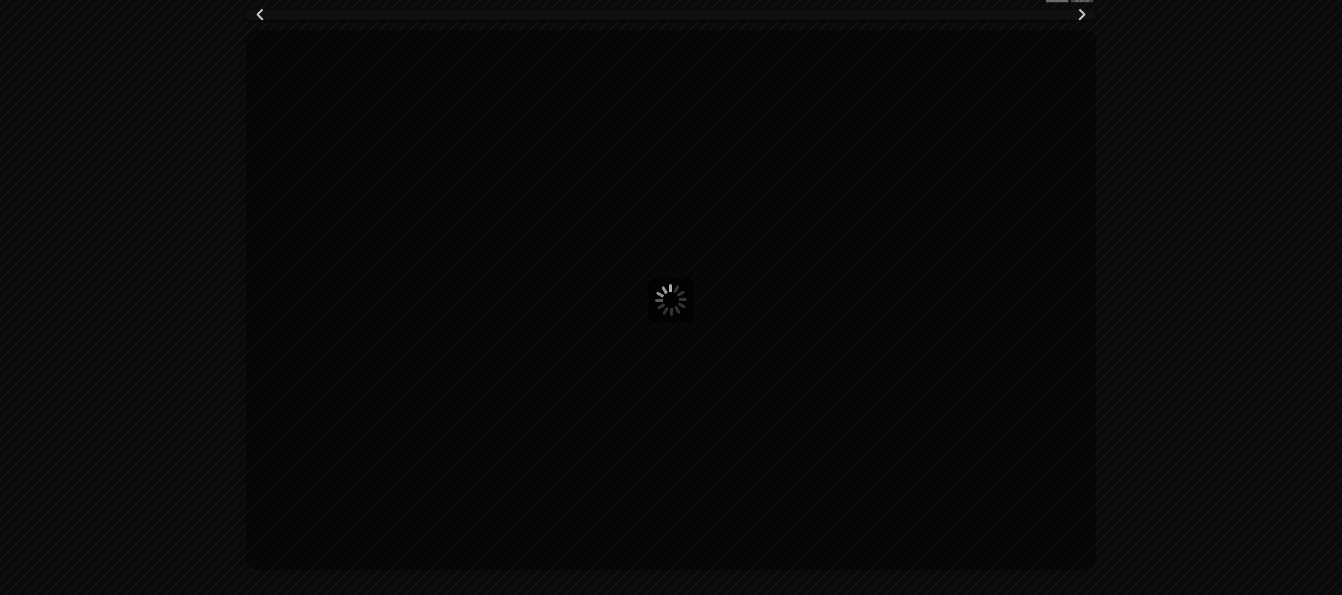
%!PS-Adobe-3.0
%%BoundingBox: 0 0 1342 595
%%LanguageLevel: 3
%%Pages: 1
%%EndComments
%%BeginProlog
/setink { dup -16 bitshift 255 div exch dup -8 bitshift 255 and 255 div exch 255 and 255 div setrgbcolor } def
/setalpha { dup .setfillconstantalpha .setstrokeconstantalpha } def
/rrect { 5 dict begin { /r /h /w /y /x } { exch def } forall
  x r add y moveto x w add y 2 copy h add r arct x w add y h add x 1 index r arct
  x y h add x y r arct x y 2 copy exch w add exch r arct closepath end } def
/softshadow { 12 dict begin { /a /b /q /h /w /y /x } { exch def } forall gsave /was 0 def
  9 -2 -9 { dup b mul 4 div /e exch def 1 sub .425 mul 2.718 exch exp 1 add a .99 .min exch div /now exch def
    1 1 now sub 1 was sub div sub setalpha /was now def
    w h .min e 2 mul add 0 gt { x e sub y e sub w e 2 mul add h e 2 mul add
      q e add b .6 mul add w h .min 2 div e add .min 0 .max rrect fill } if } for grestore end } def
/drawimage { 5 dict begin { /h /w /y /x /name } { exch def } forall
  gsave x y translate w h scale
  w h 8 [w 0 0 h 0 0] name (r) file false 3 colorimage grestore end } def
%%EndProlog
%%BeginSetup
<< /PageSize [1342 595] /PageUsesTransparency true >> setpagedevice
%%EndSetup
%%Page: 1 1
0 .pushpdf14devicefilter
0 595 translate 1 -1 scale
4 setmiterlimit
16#0A0A0A setink
0 0 1342 595 rectfill
(img1.raw) 0 0 1342 595 drawimage
0.8 setalpha
16#6F6F6F setink
1046 0 22 2 rectfill
3 setlinewidth
1047.5 -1.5 19 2 rectstroke
16#464646 setink
1071 0 22 2 rectfill
1 setalpha
(img2.raw) 1075 0 14 2 drawimage
0.8 setalpha
1072.5 -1.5 19 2 rectstroke
1 setalpha
16#000000 setink
246 11 850 10 5 1.5 0.9 softshadow
16#101010 setink
246 10 850 10 5 rrect fill
(img3.raw) 256 8 8 13 drawimage
(img4.raw) 1078 8 8 13 drawimage
(img5.raw) 246 30 850 540 drawimage
0.7 setalpha
16#000000 setink
648 277 46 46 10 rrect fill
1 setalpha
(img6.raw) 655 284 32 32 drawimage
.poppdf14devicefilter showpage
%%EOF
